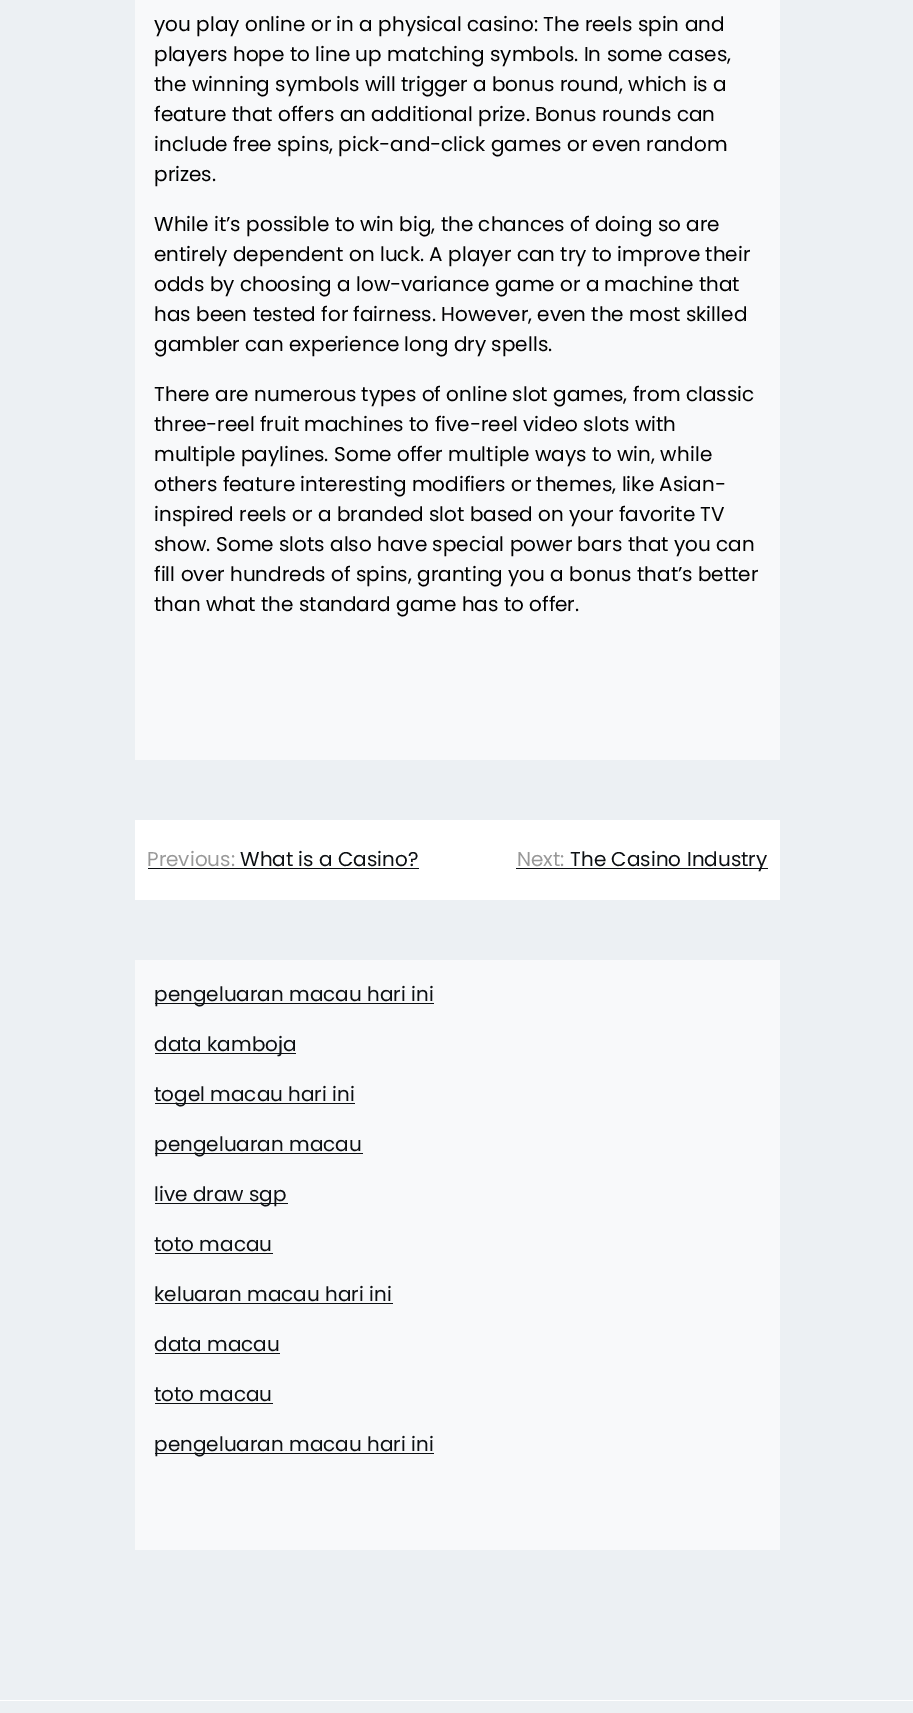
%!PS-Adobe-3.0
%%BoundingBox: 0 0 913 1713
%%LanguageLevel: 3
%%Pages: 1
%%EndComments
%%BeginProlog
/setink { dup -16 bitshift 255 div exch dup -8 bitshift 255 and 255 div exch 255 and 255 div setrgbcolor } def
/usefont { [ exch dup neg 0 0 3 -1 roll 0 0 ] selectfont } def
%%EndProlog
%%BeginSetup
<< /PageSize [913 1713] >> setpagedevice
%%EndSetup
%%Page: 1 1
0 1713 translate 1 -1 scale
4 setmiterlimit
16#ECF0F3 setink
0 0 913 1713 rectfill
16#F8F9FA setink
135 0 645 760 rectfill
/Poppins-Regular 20 usefont
16#000000 setink
[
    [(you play online or in a physical casino: The reels spin and) 154 31]
    [(players hope to line up matching symbols. In some cases,) 154 61]
    [(the winning symbols will trigger a bonus round, which is a) 154 91]
    [(feature that offers an additional prize. Bonus rounds can) 154 121]
    [(include free spins, pick-and-click games or even random) 154 151]
    [(prizes.) 154 181]
    [(While it’s possible to win big, the chances of doing so are) 154 231]
    [(entirely dependent on luck. A player can try to improve their) 154 261]
    [(odds by choosing a low-variance game or a machine that) 154 291]
    [(has been tested for fairness. However, even the most skilled) 154 321]
    [(gambler can experience long dry spells.) 154 351]
    [(There are numerous types of online slot games, from classic) 154 401]
    [(three-reel fruit machines to five-reel video slots with) 154 431]
    [(multiple paylines. Some offer multiple ways to win, while) 154 461]
    [(others feature interesting modifiers or themes, like Asian-) 154 491]
    [(inspired reels or a branded slot based on your favorite TV) 154 521]
    [(show. Some slots also have special power bars that you can) 154 551]
    [(fill over hundreds of spins, granting you a bonus that’s better) 154 581]
    [(than what the standard game has to offer.) 154 611]
] { aload pop moveto show } forall
16#FFFFFF setink
135 820 645 80 rectfill
16#999999 setink
147 866 moveto (Previous:) show
16#0D1013 setink
148 868 271 1 rectfill
240 866 moveto (What is a Casino?) show
16#999999 setink
517 866 moveto (Next:) show
16#0D1013 setink
516 868 252 1 rectfill
570 866 moveto (The Casino Industry) show
16#F8F9FA setink
135 960 645 590 rectfill
16#0D1013 setink
155 1003 279 1 rectfill
154 1001 moveto (pengeluaran macau hari ini) show
155 1053 141 1 rectfill
154 1051 moveto (data kamboja) show
155 1103 200 1 rectfill
154 1101 moveto (togel macau hari ini) show
155 1153 208 1 rectfill
154 1151 moveto (pengeluaran macau) show
155 1203 133 1 rectfill
154 1201 moveto (live draw sgp) show
154 1251 moveto (toto macau) show
155 1253 118 1 rectfill
154 1301 moveto (keluaran macau hari ini) show
155 1303 238 1 rectfill
154 1351 moveto (data macau) show
155 1353 125 1 rectfill
154 1401 moveto (toto macau) show
155 1403 118 1 rectfill
155 1453 279 1 rectfill
154 1451 moveto (pengeluaran macau hari ini) show
16#FFFFFF setink
0 1700 913 1 rectfill
showpage
%%EOF
